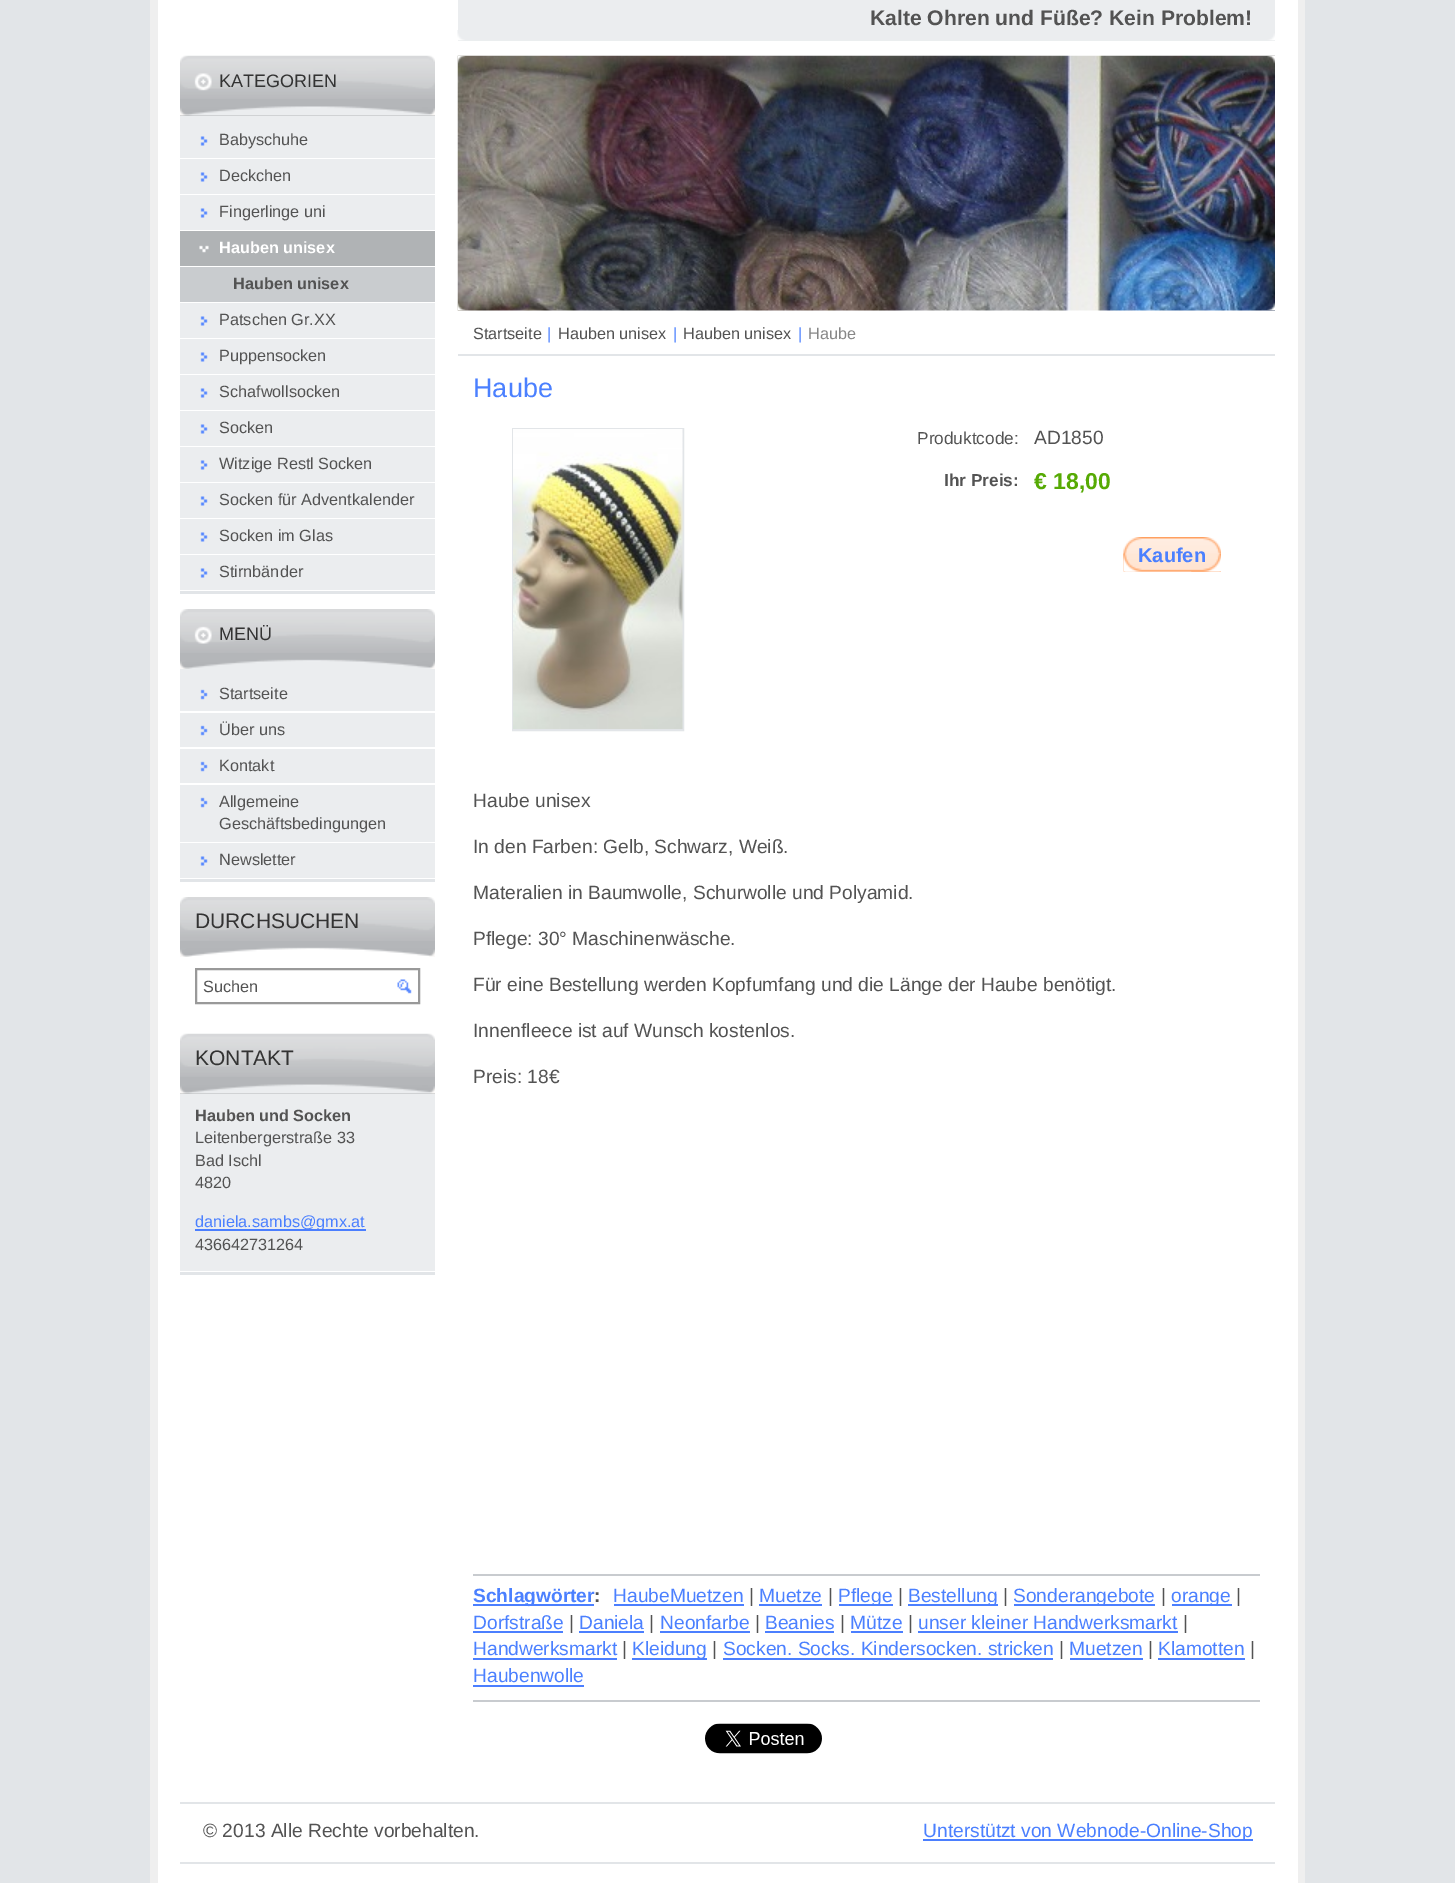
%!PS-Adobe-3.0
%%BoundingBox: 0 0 1455 1883
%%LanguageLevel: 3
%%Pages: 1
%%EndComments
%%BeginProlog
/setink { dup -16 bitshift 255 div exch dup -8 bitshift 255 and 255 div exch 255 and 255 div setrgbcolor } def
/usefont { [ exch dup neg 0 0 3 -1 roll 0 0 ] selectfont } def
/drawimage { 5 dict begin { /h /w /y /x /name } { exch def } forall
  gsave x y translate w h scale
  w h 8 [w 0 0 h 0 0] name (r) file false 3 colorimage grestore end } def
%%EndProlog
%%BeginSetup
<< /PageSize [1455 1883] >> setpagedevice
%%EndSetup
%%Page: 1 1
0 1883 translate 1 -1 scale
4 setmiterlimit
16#E2E5E8 setink
0 0 1455 1883 rectfill
[
    [158 0 1140 1883 16#FFFFFF]
    [1298 0 7 1883 16#EFEFEF]
    [150 0 8 1883 16#EFEFEF]
    [458 0 817 41 16#EBEDEF]
] { aload pop setink rectfill } forall
(img1.raw) 457 30 818 11 drawimage
/LiberationSans-Bold 21.1 usefont
16#535353 setink
870 25 moveto (Kalte Ohren und Füße? Kein Problem!) show
[
    [180 591 255 3 16#E2E5E8]
    [180 116 255 42 16#EBEDEF]
    [180 99 255 17 16#B4B6B9]
] { aload pop setink rectfill } forall
(img2.raw) 180 55 255 44 drawimage
(img3.raw) 180 106 255 10 drawimage
/LiberationSans-Regular 18 usefont
16#333333 setink
219 87 moveto (KATEGORIEN) show
(img4.raw) 200 136 8 10 drawimage
/LiberationSans-Regular 16.25 usefont
16#535353 setink
219 145 moveto (Babyschuhe) show
16#EBEDEF setink
180 159 255 35 rectfill
(img4.raw) 200 172 8 10 drawimage
16#535353 setink
219 181 moveto (Deckchen) show
16#EBEDEF setink
180 195 255 35 rectfill
(img4.raw) 200 208 8 10 drawimage
16#535353 setink
219 217 moveto (Fingerlinge uni) show
16#B0B3B5 setink
180 231 255 35 rectfill
(img5.raw) 199 245 10 8 drawimage
/LiberationSans-Bold 16.25 usefont
16#FFFFFF setink
219 253 moveto (Hauben unisex) show
16#C9CCCF setink
180 267 255 35 rectfill
16#535353 setink
233 289 moveto (Hauben unisex) show
16#EBEDEF setink
180 303 255 35 rectfill
(img4.raw) 200 316 8 10 drawimage
/LiberationSans-Regular 16.25 usefont
16#535353 setink
219 325 moveto (Patschen Gr.XX) show
16#EBEDEF setink
180 339 255 35 rectfill
(img4.raw) 200 352 8 10 drawimage
16#535353 setink
219 361 moveto (Puppensocken) show
16#EBEDEF setink
180 375 255 35 rectfill
(img4.raw) 200 388 8 10 drawimage
16#535353 setink
219 397 moveto (Schafwollsocken) show
16#EBEDEF setink
180 411 255 35 rectfill
(img4.raw) 200 424 8 10 drawimage
16#535353 setink
219 433 moveto (Socken) show
16#EBEDEF setink
180 447 255 35 rectfill
(img4.raw) 200 460 8 10 drawimage
16#535353 setink
219 469 moveto (Witzige Restl Socken) show
16#EBEDEF setink
180 483 255 35 rectfill
(img4.raw) 200 496 8 10 drawimage
16#535353 setink
219 505 moveto (Socken für Adventkalender) show
16#EBEDEF setink
180 519 255 35 rectfill
(img4.raw) 200 532 8 10 drawimage
16#535353 setink
219 541 moveto (Socken im Glas) show
16#EBEDEF setink
180 555 255 35 rectfill
(img4.raw) 200 568 8 10 drawimage
16#535353 setink
219 577 moveto (Stirnbänder) show
[
    [180 879 255 3 16#E2E5E8]
    [180 669 255 173 16#EBEDEF]
    [180 653 255 8 16#B4B6B9]
] { aload pop setink rectfill } forall
(img6.raw) 180 609 255 44 drawimage
(img7.raw) 180 659 255 10 drawimage
/LiberationSans-Regular 18 usefont
16#333333 setink
219 640 moveto (MENÜ) show
(img8.raw) 200 689 8 11 drawimage
16#FFFFFF setink
180 711 255 2 rectfill
/LiberationSans-Regular 16.25 usefont
16#535353 setink
219 699 moveto (Startseite) show
(img8.raw) 200 725 8 11 drawimage
16#FFFFFF setink
180 747 255 2 rectfill
16#535353 setink
219 735 moveto (Über uns) show
(img8.raw) 200 761 8 11 drawimage
16#FFFFFF setink
180 783 255 2 rectfill
16#535353 setink
219 771 moveto (Kontakt) show
(img8.raw) 200 797 8 11 drawimage
219 807 moveto (Allgemeine) show
219 829 moveto (Geschäftsbedingungen) show
16#EBEDEF setink
180 843 255 35 rectfill
(img4.raw) 200 856 8 10 drawimage
16#535353 setink
219 865 moveto (Newsletter) show
16#B4B6B9 setink
180 941 255 8 rectfill
(img9.raw) 180 897 255 44 drawimage
(img10.raw) 180 947 255 10 drawimage
/LiberationSans-Regular 21 usefont
16#333333 setink
195 928 moveto (DURCHSUCHEN) show
16#999999 setink
2 setlinewidth
196 969 223 34 rectstroke
/LiberationSans-Regular 16.25 usefont
16#535353 setink
203 992 moveto (Suchen) show
(img11.raw) 397 979 15 15 drawimage
[
    [180 1272 255 3 16#E2E5E8]
    [180 1094 255 177 16#EBEDEF]
    [180 1077 255 17 16#B4B6B9]
] { aload pop setink rectfill } forall
(img12.raw) 180 1033 255 44 drawimage
(img13.raw) 180 1084 255 10 drawimage
/LiberationSans-Regular 21 usefont
16#333333 setink
195 1065 moveto (KONTAKT) show
/LiberationSans-Bold 16.25 usefont
16#535353 setink
195 1121 moveto (Hauben und Socken) show
/LiberationSans-Regular 16.25 usefont
[
    [(Leitenbergerstraße 33) 195 1143]
    [(Bad Ischl) 195 1166]
    [(4820) 195 1188]
] { aload pop moveto show } forall
16#4B7FFF setink
195 1229 171 2 rectfill
16#4B80FF setink
195 1227 moveto (daniela.sambs@gmx.at) show
16#535353 setink
195 1250 moveto (436642731264) show
(img14.raw) 457 55 818 256 drawimage
(img15.raw) 457 55 818 256 drawimage
16#E2E5E8 setink
458 354 817 2 rectfill
16#535353 setink
473 339 moveto (Startseite) show
16#4B80FF setink
547 339 moveto (|) show
16#535353 setink
558 339 moveto (Hauben unisex) show
16#4B80FF setink
673 339 moveto (|) show
16#535353 setink
683 339 moveto (Hauben unisex) show
16#4B80FF setink
798 339 moveto (|) show
16#878787 setink
808 339 moveto (Haube) show
/LiberationSans-Regular 27 usefont
16#4B80FF setink
473 397 moveto (Haube) show
16#E2E5E8 setink
513 429 170 301 rectstroke
(img16.raw) 513 429 170 300 drawimage
/LiberationSans-Regular 17.25 usefont
16#535353 setink
917 444 moveto (Produktcode:) show
/LiberationSans-Regular 19.2 usefont
1034 444 moveto (AD1850) show
/LiberationSans-Bold 17.25 usefont
944 486 moveto (Ihr Preis:) show
/LiberationSans-Bold 23 usefont
16#56AA04 setink
1034 489 moveto (€ 18,00) show
(img17.raw) 1123 537 98 35 drawimage
(img18.raw) 1203 537 18 35 drawimage
(img19.raw) 1123 553 98 19 drawimage
(img20.raw) 1191 553 30 19 drawimage
/LiberationSans-Bold 20 usefont
16#4B80FF setink
1138 562 moveto (Kaufen) show
/LiberationSans-Regular 19.2 usefont
16#535353 setink
[
    [(Haube unisex) 473 807]
    [(In den Farben: Gelb, Schwarz, Weiß.) 473 853]
    [(Materalien in Baumwolle, Schurwolle und Polyamid.) 473 899]
    [(Pflege: 30° Maschinenwäsche.) 473 945]
    [(Für eine Bestellung werden Kopfumfang und die Länge der Haube benötigt.) 473 991]
    [(Innenfleece ist auf Wunsch kostenlos.) 473 1037]
    [(Preis: 18€) 473 1083]
] { aload pop moveto show } forall
[
    [473 1574 787 2 16#C8CBCF]
    [473 1700 787 2 16#C8CBCF]
    [473 1604 121 2 16#4B7FFF]
] { aload pop setink rectfill } forall
/LiberationSans-Bold 19.2 usefont
16#4B80FF setink
473 1602 moveto (Schlagwörter) show
16#535353 setink
594 1602 moveto (:) show
/LiberationSans-Regular 19.2 usefont
16#4B80FF setink
613 1602 moveto (HaubeMuetzen) show
16#4B7FFF setink
614 1604 130 2 rectfill
16#535353 setink
749 1602 moveto (|) show
16#4B80FF setink
759 1602 moveto (Muetze) show
16#4B7FFF setink
759 1604 63 2 rectfill
16#535353 setink
828 1602 moveto (|) show
16#4B7FFF setink
839 1604 54 2 rectfill
16#4B80FF setink
838 1602 moveto (Pflege) show
16#535353 setink
898 1602 moveto (|) show
16#4B7FFF setink
908 1604 90 2 rectfill
16#4B80FF setink
908 1602 moveto (Bestellung) show
16#535353 setink
1003 1602 moveto (|) show
16#4B7FFF setink
1014 1604 141 2 rectfill
16#4B80FF setink
1013 1602 moveto (Sonderangebote) show
16#535353 setink
1161 1602 moveto (|) show
16#4B7FFF setink
1172 1604 60 2 rectfill
16#4B80FF setink
1171 1602 moveto (orange) show
16#535353 setink
1236 1602 moveto (|) show
16#4B80FF setink
473 1629 moveto (Dorfstraße) show
16#4B7FFF setink
473 1631 90 2 rectfill
16#535353 setink
569 1629 moveto (|) show
16#4B80FF setink
579 1629 moveto (Daniela) show
16#4B7FFF setink
579 1631 65 2 rectfill
16#535353 setink
649 1629 moveto (|) show
16#4B80FF setink
660 1629 moveto (Neonfarbe) show
16#4B7FFF setink
660 1631 90 2 rectfill
16#535353 setink
755 1629 moveto (|) show
16#4B80FF setink
765 1629 moveto (Beanies) show
16#4B7FFF setink
765 1631 69 2 rectfill
16#535353 setink
840 1629 moveto (|) show
16#4B80FF setink
850 1629 moveto (Mütze) show
16#4B7FFF setink
851 1631 52 2 rectfill
16#535353 setink
908 1629 moveto (|) show
16#4B80FF setink
918 1629 moveto (unser kleiner Handwerksmarkt) show
16#4B7FFF setink
918 1631 260 2 rectfill
16#535353 setink
1183 1629 moveto (|) show
16#4B80FF setink
473 1655 moveto (Handwerksmarkt) show
16#4B7FFF setink
473 1658 144 2 rectfill
16#535353 setink
622 1655 moveto (|) show
16#4B7FFF setink
632 1658 75 2 rectfill
16#4B80FF setink
632 1655 moveto (Kleidung) show
16#535353 setink
712 1655 moveto (|) show
16#4B80FF setink
723 1655 moveto (Socken. Socks. Kindersocken. stricken) show
16#4B7FFF setink
723 1658 330 2 rectfill
16#535353 setink
1059 1655 moveto (|) show
16#4B80FF setink
1069 1655 moveto (Muetzen) show
16#4B7FFF setink
1070 1658 73 2 rectfill
16#535353 setink
1148 1655 moveto (|) show
16#4B80FF setink
1158 1655 moveto (Klamotten) show
16#4B7FFF setink
1158 1658 87 2 rectfill
16#535353 setink
1250 1655 moveto (|) show
16#4B80FF setink
473 1682 moveto (Haubenwolle) show
16#4B7FFF setink
473 1685 111 2 rectfill
(img21.raw) 705 1723 117 31 drawimage
16#E2E5E8 setink
180 1802 1095 2 rectfill
180 1862 1095 2 rectfill
16#535353 setink
203 1837 moveto (© 2013 Alle Rechte vorbehalten.) show
16#4B7FFF setink
923 1839 330 2 rectfill
16#4B80FF setink
923 1837 moveto (Unterstützt von Webnode-Online-Shop) show
showpage
%%EOF
